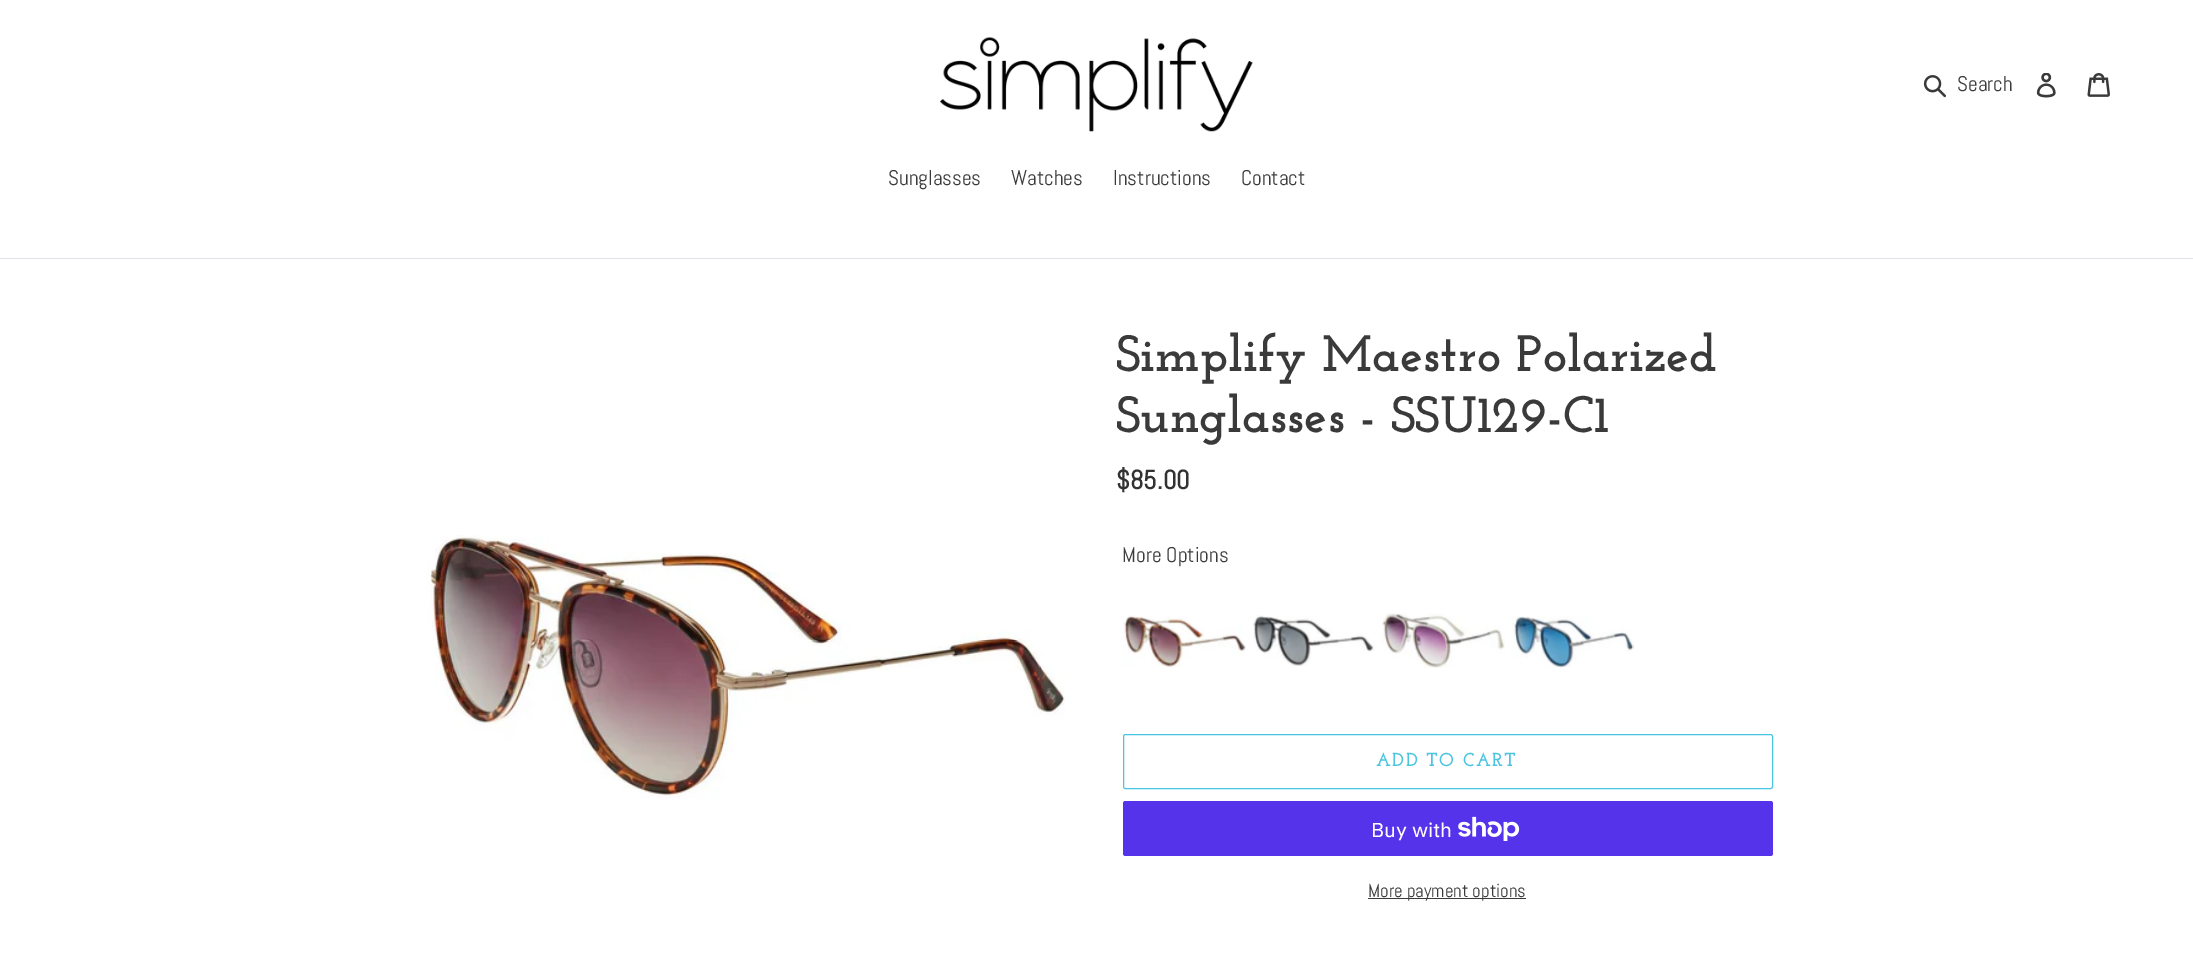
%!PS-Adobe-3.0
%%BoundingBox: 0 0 2193 964
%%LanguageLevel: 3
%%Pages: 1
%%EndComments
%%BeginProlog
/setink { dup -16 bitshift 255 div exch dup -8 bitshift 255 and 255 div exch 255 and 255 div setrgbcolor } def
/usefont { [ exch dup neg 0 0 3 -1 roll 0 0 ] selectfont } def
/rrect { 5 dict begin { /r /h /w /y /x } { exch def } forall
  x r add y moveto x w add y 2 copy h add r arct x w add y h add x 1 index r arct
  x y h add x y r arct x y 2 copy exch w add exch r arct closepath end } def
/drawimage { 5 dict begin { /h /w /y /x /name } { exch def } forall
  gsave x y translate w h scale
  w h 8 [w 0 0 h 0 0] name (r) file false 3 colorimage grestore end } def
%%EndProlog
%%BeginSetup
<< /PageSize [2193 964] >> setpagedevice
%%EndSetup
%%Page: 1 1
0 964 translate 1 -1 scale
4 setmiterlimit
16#FFFFFF setink
0 0 2193 964 rectfill
(img1.raw) 940 37 313 95 drawimage
(img2.raw) 1923 75 23 23 drawimage
/Abel-Regular 21.25 usefont
16#3A3A3A setink
1957 91 moveto (Search) show
(img3.raw) 2036 73 20 25 drawimage
(img4.raw) 2087 73 23 24 drawimage
16#DEE2E6 setink
0 258 2193 1 rectfill
16#3A3A3A setink
[
    [(Sunglasses) 888 185]
    [(Watches) 1011 185]
    [(Instructions) 1113 185]
    [(Contact) 1241 185]
] { aload pop moveto show } forall
(img5.raw) 427 535 638 264 drawimage
/JosefinSlab-Bold 51.25 usefont
1116 371 moveto (Simplify Maestro Polarized) show
1116 432 moveto (Sunglasses - SSU129-C1) show
/Abel-Bold 26.5 usefont
16#333232 setink
1116 489 moveto ($85.00) show
/Abel-Regular 21.25 usefont
16#3A3A3A setink
1122 562 moveto (More Options) show
(img6.raw) 1123 615 123 53 drawimage
(img7.raw) 1253 615 121 51 drawimage
(img8.raw) 1381 613 124 55 drawimage
(img9.raw) 1511 616 124 52 drawimage
16#49C4E1 setink
1123.5 734.5 649 54 2 rrect stroke
/JosefinSlab-Bold 18.75 usefont
1376 766 moveto 1.5 0 (ADD TO CART) ashow
16#5433EB setink
1123 801 650 55 2.5 rrect fill
/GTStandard-Regular 20 usefont
16#FFFFFF setink
1371 837 moveto (Buy with) show
(img10.raw) 1458 816 62 25 drawimage
16#3A3A3A setink
1368 898 158 1 rectfill
/Abel-Regular 18.75 usefont
1368 897 moveto (More payment options) show
showpage
%%EOF
